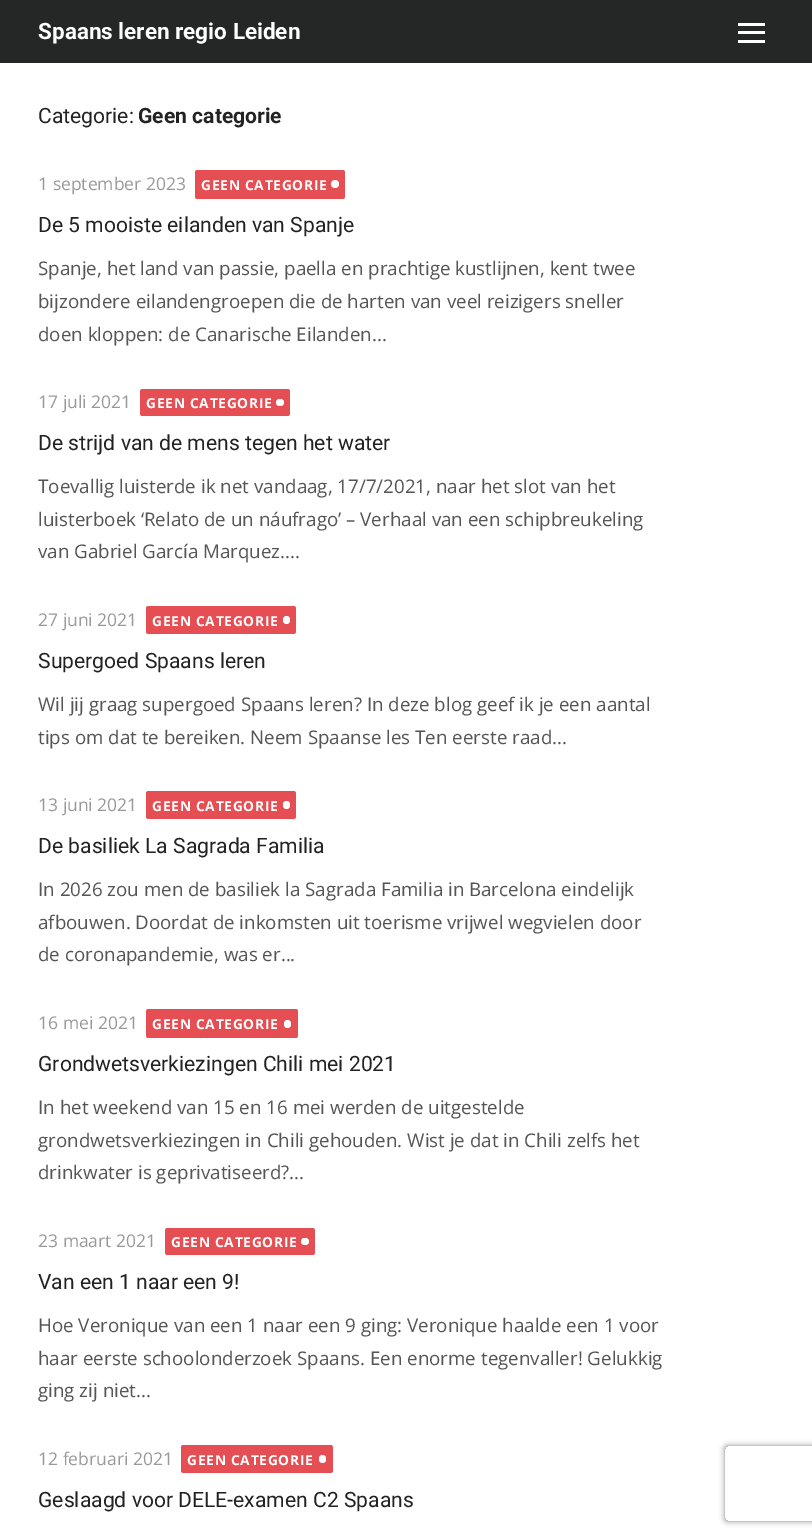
%!PS-Adobe-3.0
%%BoundingBox: 0 0 812 1538
%%LanguageLevel: 3
%%Pages: 1
%%EndComments
%%BeginProlog
/setink { dup -16 bitshift 255 div exch dup -8 bitshift 255 and 255 div exch 255 and 255 div setrgbcolor } def
/usefont { [ exch dup neg 0 0 3 -1 roll 0 0 ] selectfont } def
/setalpha { dup .setfillconstantalpha .setstrokeconstantalpha } def
/disc { newpath 0 360 arc closepath } def
/rrect { 5 dict begin { /r /h /w /y /x } { exch def } forall
  x r add y moveto x w add y 2 copy h add r arct x w add y h add x 1 index r arct
  x y h add x y r arct x y 2 copy exch w add exch r arct closepath end } def
/softshadow { 12 dict begin { /a /b /q /h /w /y /x } { exch def } forall gsave /was 0 def
  9 -2 -9 { dup b mul 4 div /e exch def 1 sub .425 mul 2.718 exch exp 1 add a .99 .min exch div /now exch def
    1 1 now sub 1 was sub div sub setalpha /was now def
    w h .min e 2 mul add 0 gt { x e sub y e sub w e 2 mul add h e 2 mul add
      q e add b .6 mul add w h .min 2 div e add .min 0 .max rrect fill } if } for grestore end } def
%%EndProlog
%%BeginSetup
<< /PageSize [812 1538] /PageUsesTransparency true >> setpagedevice
%%EndSetup
%%Page: 1 1
0 .pushpdf14devicefilter
0 1538 translate 1 -1 scale
4 setmiterlimit
16#FFFFFF setink
0 0 812 1538 rectfill
16#252626 setink
0 0 812 63 rectfill
/Roboto-Bold 22.5 usefont
16#FFFFFF setink
38 39 moveto (Spaans leren regio Leiden) show
[
    [738 31 27 3 16#FFFFFF]
    [738 23 27 3 16#FFFFFF]
    [738 40 27 3 16#FFFFFF]
] { aload pop setink rectfill } forall
/Roboto-Regular 21.1 usefont
16#222222 setink
38 123 moveto (Categorie:) show
/Roboto-Bold 21.1 usefont
138 123 moveto (Geen categorie) show
/OpenSans-Regular 17.5 usefont
16#999999 setink
38 190 moveto (1 september 2023) show
16#E54E53 setink
195 170 150 29 2.5 rrect fill
/OpenSans-Bold 13.75 usefont
16#FFFFFF setink
201 190 moveto 0.75 0 (GEEN CATEGORIE) ashow
335 184 4 disc fill
/Roboto-Regular 21.1 usefont
16#222222 setink
38 232 moveto (De 5 mooiste eilanden van Spanje) show
/OpenSans-Regular 18.75 usefont
16#555555 setink
[
    [(Spanje, het land van passie, paella en prachtige kustlijnen, kent twee) 38 275]
    [(bijzondere eilandengroepen die de harten van veel reizigers sneller) 38 308]
    [(doen kloppen: de Canarische Eilanden...) 38 341]
] { aload pop moveto show } forall
/OpenSans-Regular 17.5 usefont
16#999999 setink
38 408 moveto (17 juli 2021) show
16#E54E53 setink
140 389 150 27 2.5 rrect fill
/OpenSans-Bold 13.75 usefont
16#FFFFFF setink
146 408 moveto 0.75 0 (GEEN CATEGORIE) ashow
276 399 8 7 3.5 rrect fill
/Roboto-Regular 21.1 usefont
16#222222 setink
38 450 moveto (De strijd van de mens tegen het water) show
/OpenSans-Regular 18.75 usefont
16#555555 setink
[
    [(Toevallig luisterde ik net vandaag, 17/7/2021, naar het slot van het) 38 493]
    [(luisterboek ‘Relato de un náufrago’ – Verhaal van een schipbreukeling) 38 526]
    [(van Gabriel García Marquez....) 38 558]
] { aload pop moveto show } forall
/OpenSans-Regular 17.5 usefont
16#999999 setink
38 626 moveto (27 juni 2021) show
16#E54E53 setink
146 606 150 28 2.5 rrect fill
/OpenSans-Bold 13.75 usefont
16#FFFFFF setink
152 626 moveto 0.75 0 (GEEN CATEGORIE) ashow
283 616 7 8 3.5 rrect fill
/Roboto-Regular 21.1 usefont
16#222222 setink
38 668 moveto (Supergoed Spaans leren) show
/OpenSans-Regular 18.75 usefont
16#555555 setink
38 711 moveto (Wil jij graag supergoed Spaans leren? In deze blog geef ik je een aantal) show
38 744 moveto (tips om dat te bereiken. Neem Spaanse les Ten eerste raad...) show
/OpenSans-Regular 17.5 usefont
16#999999 setink
38 811 moveto (13 juni 2021) show
16#E54E53 setink
146 791 150 28 2.5 rrect fill
/OpenSans-Bold 13.75 usefont
16#FFFFFF setink
152 811 moveto 0.75 0 (GEEN CATEGORIE) ashow
283 801 7 8 3.5 rrect fill
/Roboto-Regular 21.1 usefont
16#222222 setink
38 853 moveto (De basiliek La Sagrada Familia) show
/OpenSans-Regular 18.75 usefont
16#555555 setink
[
    [(In 2026 zou men de basiliek la Sagrada Familia in Barcelona eindelijk) 38 896]
    [(afbouwen. Doordat de inkomsten uit toerisme vrijwel wegvielen door) 38 929]
    [(de coronapandemie, was er...) 38 961]
] { aload pop moveto show } forall
/OpenSans-Regular 17.5 usefont
16#999999 setink
38 1029 moveto (16 mei 2021) show
16#E54E53 setink
146 1009 152 29 2.5 rrect fill
/OpenSans-Bold 13.75 usefont
16#FFFFFF setink
152 1029 moveto 0.75 0 (GEEN CATEGORIE) ashow
284 1020 7 8 3.5 rrect fill
/Roboto-Regular 21.1 usefont
16#222222 setink
38 1071 moveto (Grondwetsverkiezingen Chili mei 2021) show
/OpenSans-Regular 18.75 usefont
16#555555 setink
[
    [(In het weekend van 15 en 16 mei werden de uitgestelde) 38 1114]
    [(grondwetsverkiezingen in Chili gehouden. Wist je dat in Chili zelfs het) 38 1147]
    [(drinkwater is geprivatiseerd?...) 38 1179]
] { aload pop moveto show } forall
/OpenSans-Regular 17.5 usefont
16#999999 setink
38 1247 moveto (23 maart 2021) show
16#E54E53 setink
165 1228 150 27 2.5 rrect fill
/OpenSans-Bold 13.75 usefont
16#FFFFFF setink
171 1247 moveto 0.75 0 (GEEN CATEGORIE) ashow
301 1238 8 7 3.5 rrect fill
/Roboto-Regular 21.1 usefont
16#222222 setink
38 1289 moveto (Van een 1 naar een 9!) show
/OpenSans-Regular 18.75 usefont
16#555555 setink
[
    [(Hoe Veronique van een 1 naar een 9 ging: Veronique haalde een 1 voor) 38 1332]
    [(haar eerste schoolonderzoek Spaans. Een enorme tegenvaller! Gelukkig) 38 1365]
    [(ging zij niet...) 38 1397]
] { aload pop moveto show } forall
/OpenSans-Regular 17.5 usefont
16#999999 setink
38 1465 moveto (12 februari 2021) show
16#E54E53 setink
181 1445 152 28 2.5 rrect fill
/OpenSans-Bold 13.75 usefont
16#FFFFFF setink
187 1465 moveto 0.75 0 (GEEN CATEGORIE) ashow
319 1455 7 8 3.5 rrect fill
/Roboto-Regular 21.1 usefont
16#222222 setink
38 1507 moveto (Geslaagd voor DELE-examen C2 Spaans) show
gsave
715 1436 moveto 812 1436 lineto 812 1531 lineto 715 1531 lineto closepath 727.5 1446 moveto 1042.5 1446 lineto 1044 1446 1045 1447 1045 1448.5 curveto 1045 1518.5 lineto 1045 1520 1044 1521 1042.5 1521 curveto 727.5 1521 lineto 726 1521 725 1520 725 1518.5 curveto 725 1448.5 lineto 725 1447 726 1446 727.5 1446 curveto closepath eoclip newpath
16#808080 setink
725 1446 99 75 2.5 3 1 softshadow
grestore
.poppdf14devicefilter showpage
%%EOF
